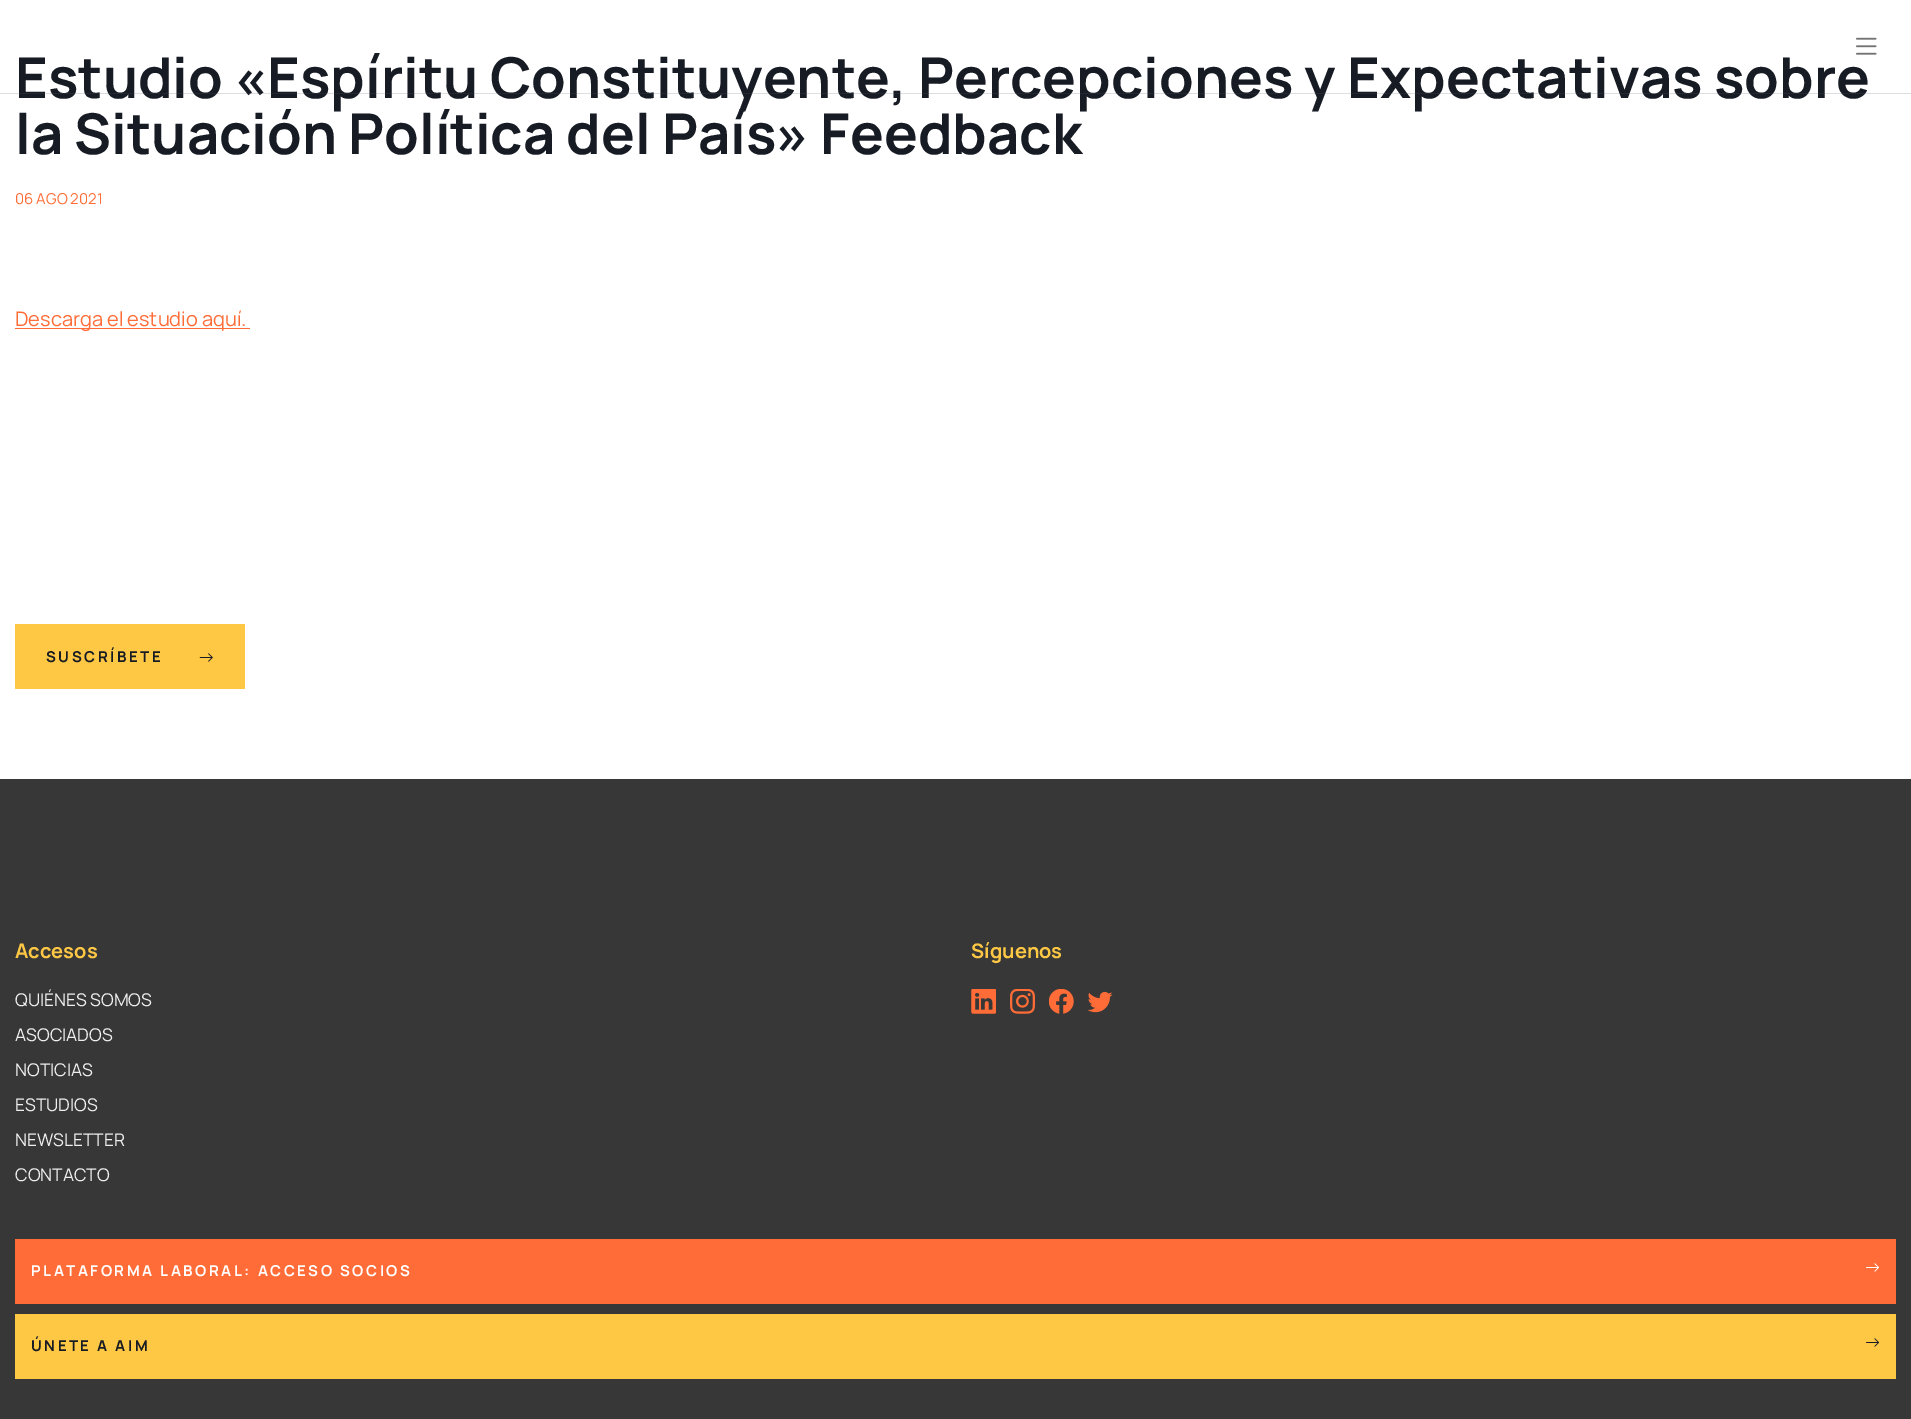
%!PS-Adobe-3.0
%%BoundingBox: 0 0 1911 1419
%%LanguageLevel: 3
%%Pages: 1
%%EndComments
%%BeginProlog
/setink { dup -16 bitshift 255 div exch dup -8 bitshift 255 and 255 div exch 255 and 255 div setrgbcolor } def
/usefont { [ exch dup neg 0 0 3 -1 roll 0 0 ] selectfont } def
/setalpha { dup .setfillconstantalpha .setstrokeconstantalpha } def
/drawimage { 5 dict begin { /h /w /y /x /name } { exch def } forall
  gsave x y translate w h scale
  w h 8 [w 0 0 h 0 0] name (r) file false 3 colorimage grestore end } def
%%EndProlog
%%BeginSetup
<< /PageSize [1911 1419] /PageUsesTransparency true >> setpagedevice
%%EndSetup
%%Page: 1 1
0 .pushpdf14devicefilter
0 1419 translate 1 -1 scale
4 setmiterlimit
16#FFFFFF setink
0 0 1911 1419 rectfill
/Manrope-Bold 56.2 usefont
16#171B24 setink
15 98 moveto (Estudio «Espíritu Constituyente, Percepciones y Expectativas sobre) show
0.2 setalpha
16#555C70 setink
0 93 1911 1 rectfill
1 setalpha
(img1.raw) 1856 37 21 18 drawimage
16#171B24 setink
15 154 moveto (la Situación Política del País» Feedback) show
/Manrope-Regular 15 usefont
16#FF6C37 setink
15 204 moveto (06 AGO 2021) show
15 328 235 1 rectfill
/Manrope-Regular 20 usefont
15 326 moveto (Descarga el estudio aquí.) show
16#FFC844 setink
15 624 230 65 rectfill
/Manrope-Bold 15 usefont
16#171B24 setink
46 662 moveto 2.5 0 (SUSCRÍBETE) ashow
(img2.raw) 199 653 14 9 drawimage
16#373737 setink
0 779 1911 640 rectfill
/Manrope-Bold 20 usefont
16#FFC844 setink
15 958 moveto (Accesos) show
/Manrope-Regular 17.5 usefont
16#EFEFEF setink
[
    [(QUIÉNES SOMOS) 15 1006]
    [(ASOCIADOS) 15 1041]
    [(NOTICIAS) 15 1076]
    [(ESTUDIOS) 15 1111]
    [(NEWSLETTER) 15 1146]
    [(CONTACTO) 15 1181]
] { aload pop moveto show } forall
/Manrope-Bold 20 usefont
16#FFC844 setink
971 958 moveto (Síguenos) show
(img3.raw) 971 989 25 25 drawimage
(img4.raw) 1010 989 25 25 drawimage
(img5.raw) 1049 989 25 25 drawimage
(img6.raw) 1088 991 25 22 drawimage
16#FF6C37 setink
15 1239 1881 65 rectfill
/Manrope-Bold 15 usefont
16#FFFFFF setink
31 1276 moveto 2.5 0 (PLATAFORMA LABORAL: ACCESO SOCIOS) ashow
(img7.raw) 1866 1263 13 9 drawimage
16#FFC844 setink
15 1314 1881 65 rectfill
16#171B24 setink
31 1351 moveto 2.5 0 (ÚNETE A AIM) ashow
(img8.raw) 1866 1338 13 9 drawimage
.poppdf14devicefilter showpage
%%EOF
